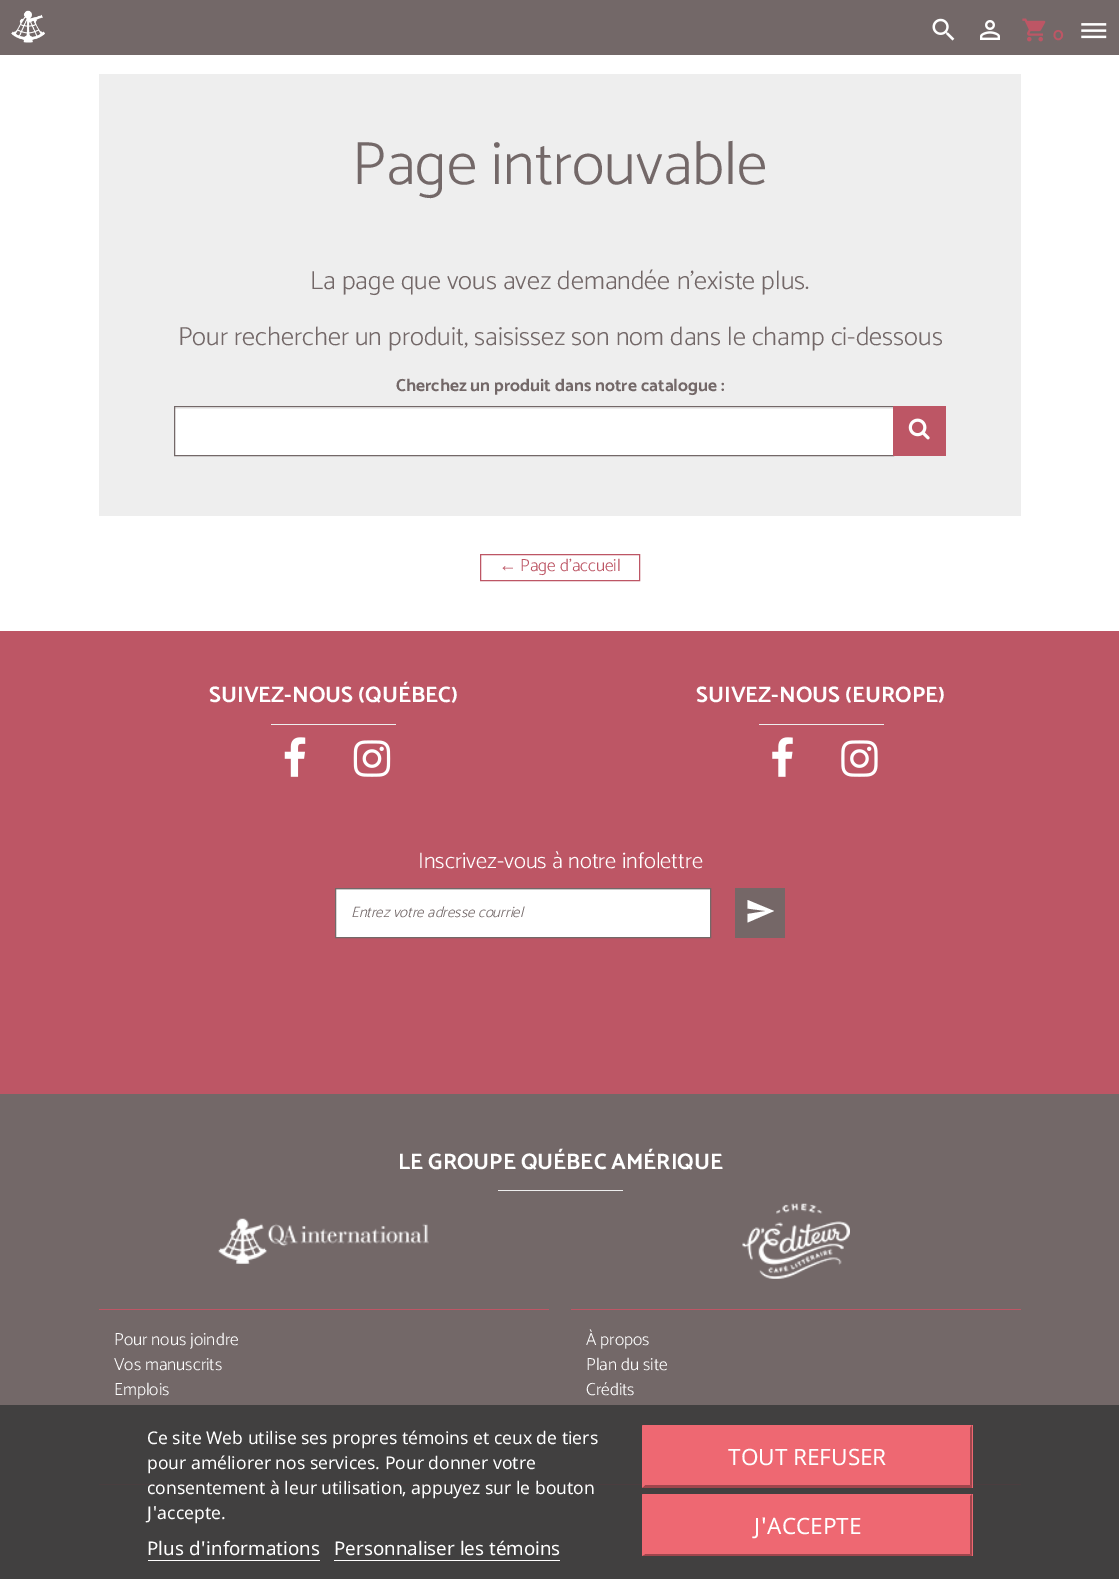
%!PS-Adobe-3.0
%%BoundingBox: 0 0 1119 1579
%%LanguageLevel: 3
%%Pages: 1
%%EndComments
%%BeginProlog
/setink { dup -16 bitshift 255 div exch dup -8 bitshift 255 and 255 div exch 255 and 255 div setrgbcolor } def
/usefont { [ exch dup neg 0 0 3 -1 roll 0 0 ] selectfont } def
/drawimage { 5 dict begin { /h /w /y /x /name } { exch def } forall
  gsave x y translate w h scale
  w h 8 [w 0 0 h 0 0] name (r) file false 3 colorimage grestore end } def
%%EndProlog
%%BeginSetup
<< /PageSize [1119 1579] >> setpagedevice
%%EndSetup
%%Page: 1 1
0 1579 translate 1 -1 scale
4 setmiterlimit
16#FFFFFF setink
0 0 1119 1579 rectfill
16#736868 setink
0 0 1119 55 rectfill
(img1.raw) 11 10 34 33 drawimage
(img2.raw) 932 18 23 23 drawimage
(img3.raw) 980 20 20 20 drawimage
(img4.raw) 1022 18 24 24 drawimage
/Catamaran-Bold 17.5 usefont
16#BD5665 setink
1053 40 moveto (0) show
(img5.raw) 1081 23 26 16 drawimage
16#EEEEEE setink
99 74 922 442 rectfill
/Catamaran-Light 61.25 usefont
16#736868 setink
352 184 moveto (Page introuvable) show
/Catamaran-Light 26.25 usefont
310 289 moveto (La page que vous avez demandée n'existe plus.) show
178 345 moveto (Pour rechercher un produit, saisissez son nom dans le champ ci-dessous) show
/Catamaran-Bold 17.5 usefont
396 391 moveto (Cherchez un produit dans notre catalogue :) show
16#FFFFFF setink
175 407 718 48 rectfill
16#ECECEC setink
175 408 718 1 rectfill
16#736868 setink
174.5 406.5 719 49 rectstroke
16#BD5665 setink
893 406 53 50 rectfill
(img6.raw) 908 418 22 22 drawimage
480.5 554.5 159 26 rectstroke
/LiberationSans-Regular 17.5 usefont
499 571 moveto (←) show
/Catamaran-Light 17.5 usefont
520 571 moveto (Page d'accueil) show
[
    [0 1094 1119 311 16#736868]
    [0 1405 1119 174 16#414040]
    [0 631 1119 463 16#BD5665]
] { aload pop setink rectfill } forall
/Catamaran-Bold 22.5 usefont
16#FFFFFF setink
209 702 moveto (SUIVEZ-NOUS \(QUÉBEC\)) show
16#EEEEEE setink
271 724 125 1 rectfill
(img7.raw) 284 737 22 40 drawimage
(img8.raw) 353 740 38 37 drawimage
16#FFFFFF setink
696 702 moveto (SUIVEZ-NOUS \(EUROPE\)) show
16#EEEEEE setink
759 724 125 1 rectfill
(img9.raw) 772 737 21 40 drawimage
(img10.raw) 841 740 37 37 drawimage
/Catamaran-Light 22.5 usefont
16#FFFFFF setink
418 868 moveto (Inscrivez-vous à notre infolettre) show
336 890 374 47 rectfill
16#ECECEC setink
336 889 374 1 rectfill
16#736868 setink
335.5 888.5 375 49 rectstroke
/Catamaran-LightItalic 15 usefont
351 917 moveto (Entrez votre adresse courriel) show
16#756767 setink
735 888 50 50 rectfill
16#FFFFFF setink
747.5 922.5 moveto 747.5 914 lineto 766.5 911 lineto 747.5 908.5 lineto 747.5 900 lineto 774 911 lineto closepath fill
/Catamaran-Bold 22.5 usefont
398 1169 moveto (LE GROUPE QUÉBEC AMÉRIQUE) show
16#EEEEEE setink
498 1190 125 1 rectfill
(img11.raw) 218 1218 211 46 drawimage
(img12.raw) 742 1203 108 76 drawimage
16#BD5665 setink
99 1309 450 1 rectfill
/Catamaran-Light 17.5 usefont
16#FFFFFF setink
[
    [(Pour nous joindre) 114 1345]
    [(Vos manuscrits) 114 1370]
    [(Emplois) 114 1395]
] { aload pop moveto show } forall
16#BD5665 setink
571 1309 450 1 rectfill
16#FFFFFF setink
[
    [(À propos) 586 1345]
    [(Plan du site) 586 1370]
    [(Crédits) 586 1395]
] { aload pop moveto show } forall
/NotoSans-Regular 17.5 usefont
147 1444 moveto (Ce site Web utilise ses propres témoins et ceux de tiers) show
147 1469 moveto (pour améliorer nos services. Pour donner votre) show
16#483E3F setink
99 1484 450 1 rectfill
16#4A3D3F setink
571 1484 450 1 rectfill
16#FFFFFF setink
147 1494 moveto (consentement à leur utilisation, appuyez sur le bouton) show
147 1519 moveto (J'accepte.) show
/NotoSans-Regular 18.75 usefont
147 1555 moveto (Plus d'informations) show
148 1560 172 1 rectfill
334 1555 moveto (Personnaliser les témoins) show
334 1560 226 1 rectfill
16#EE6872 setink
643 1425 330 63 rectfill
642 1425 moveto 972 1425 lineto 970 1428 lineto 645 1428 lineto closepath fill
16#9F454C setink
972 1425 moveto 972 1488 lineto 970 1485 lineto 970 1428 lineto closepath fill
972 1488 moveto 642 1488 lineto 645 1485 lineto 970 1485 lineto closepath fill
16#EE6872 setink
642 1488 moveto 642 1425 lineto 645 1428 lineto 645 1485 lineto closepath fill
/NotoSans-Regular 22.5 usefont
16#FFFFFF setink
728 1465 moveto (TOUT REFUSER) show
16#EE6872 setink
643 1494 330 62 rectfill
642 1494 moveto 972 1494 lineto 970 1496 lineto 645 1496 lineto closepath fill
16#9F454C setink
972 1494 moveto 972 1556 lineto 970 1554 lineto 970 1496 lineto closepath fill
972 1556 moveto 642 1556 lineto 645 1554 lineto 970 1554 lineto closepath fill
16#EE6872 setink
642 1556 moveto 642 1494 lineto 645 1496 lineto 645 1554 lineto closepath fill
16#FFFFFF setink
754 1534 moveto (J'ACCEPTE) show
showpage
%%EOF
